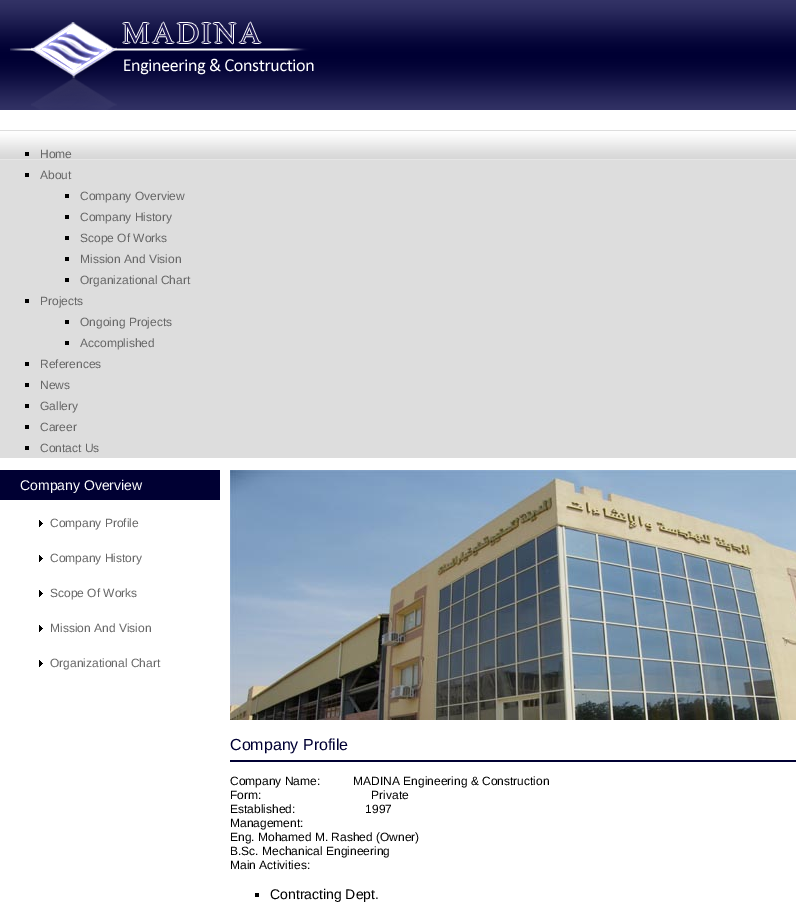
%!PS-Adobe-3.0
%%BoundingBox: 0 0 796 903
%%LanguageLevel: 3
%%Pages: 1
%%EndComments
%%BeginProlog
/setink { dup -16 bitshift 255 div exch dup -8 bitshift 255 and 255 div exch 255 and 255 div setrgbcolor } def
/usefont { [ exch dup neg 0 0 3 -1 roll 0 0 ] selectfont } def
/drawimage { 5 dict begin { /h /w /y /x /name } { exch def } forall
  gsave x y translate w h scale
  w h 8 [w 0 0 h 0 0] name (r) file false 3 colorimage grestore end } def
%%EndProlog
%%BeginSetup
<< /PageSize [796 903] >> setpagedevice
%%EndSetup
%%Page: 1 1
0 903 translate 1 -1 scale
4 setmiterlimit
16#FFFFFF setink
0 0 796 903 rectfill
(img1.raw) 0 0 796 110 drawimage
(img2.raw) 10 21 304 89 drawimage
16#DDDDDD setink
0 130 796 328 rectfill
(img3.raw) 0 131 796 29 drawimage
16#000000 setink
25 152 4 4 rectfill
/LiberationSans-Regular 12 usefont
16#666666 setink
40 158 moveto (Home) show
16#000000 setink
25 173 4 4 rectfill
16#666666 setink
40 179 moveto (About) show
16#000000 setink
65 194 4 4 rectfill
16#666666 setink
80 200 moveto (Company Overview) show
16#000000 setink
65 215 4 4 rectfill
16#666666 setink
80 221 moveto (Company History) show
16#000000 setink
65 236 4 4 rectfill
16#666666 setink
80 242 moveto (Scope Of Works) show
16#000000 setink
65 257 4 4 rectfill
16#666666 setink
80 263 moveto (Mission And Vision) show
16#000000 setink
65 278 4 4 rectfill
16#666666 setink
80 284 moveto (Organizational Chart) show
16#000000 setink
25 299 4 4 rectfill
16#666666 setink
40 305 moveto (Projects) show
16#000000 setink
65 320 4 4 rectfill
16#666666 setink
80 326 moveto (Ongoing Projects) show
16#000000 setink
65 341 4 4 rectfill
16#666666 setink
80 347 moveto (Accomplished) show
16#000000 setink
25 362 4 4 rectfill
16#666666 setink
40 368 moveto (References) show
16#000000 setink
25 383 4 4 rectfill
16#666666 setink
40 389 moveto (News) show
16#000000 setink
25 404 4 4 rectfill
16#666666 setink
40 410 moveto (Gallery) show
16#000000 setink
25 425 4 4 rectfill
16#666666 setink
40 431 moveto (Career) show
16#000000 setink
25 446 4 4 rectfill
16#666666 setink
40 452 moveto (Contact Us) show
16#000033 setink
0 470 220 30 rectfill
/LiberationSans-Regular 14 usefont
16#FFFFFF setink
20 490 moveto (Company Overview) show
(img4.raw) 39 520 4 7 drawimage
/LiberationSans-Regular 12 usefont
16#666666 setink
50 527 moveto (Company Profile) show
(img4.raw) 39 555 4 7 drawimage
50 562 moveto (Company History) show
(img4.raw) 39 590 4 7 drawimage
50 597 moveto (Scope Of Works) show
(img4.raw) 39 625 4 7 drawimage
50 632 moveto (Mission And Vision) show
(img4.raw) 39 660 4 7 drawimage
50 667 moveto (Organizational Chart) show
(img5.raw) 230 470 566 250 drawimage
16#000033 setink
230 760 566 2 rectfill
/LiberationSans-Regular 16 usefont
230 750 moveto (Company Profile) show
/LiberationSans-Regular 12 usefont
16#000000 setink
[
    [(Company Name:          MADINA Engineering & Construction) 230 785]
    [(Form:                                 Private) 230 799]
    [(Established:                     1997) 230 813]
    [(Management:) 230 827]
    [(Eng. Mohamed M. Rashed \(Owner\)) 230 841]
    [(B.Sc. Mechanical Engineering) 230 855]
    [(Main Activities:) 230 869]
] { aload pop moveto show } forall
255 893 4 4 rectfill
/LiberationSans-Regular 14 usefont
270 899 moveto (Contracting Dept.) show
showpage
%%EOF
